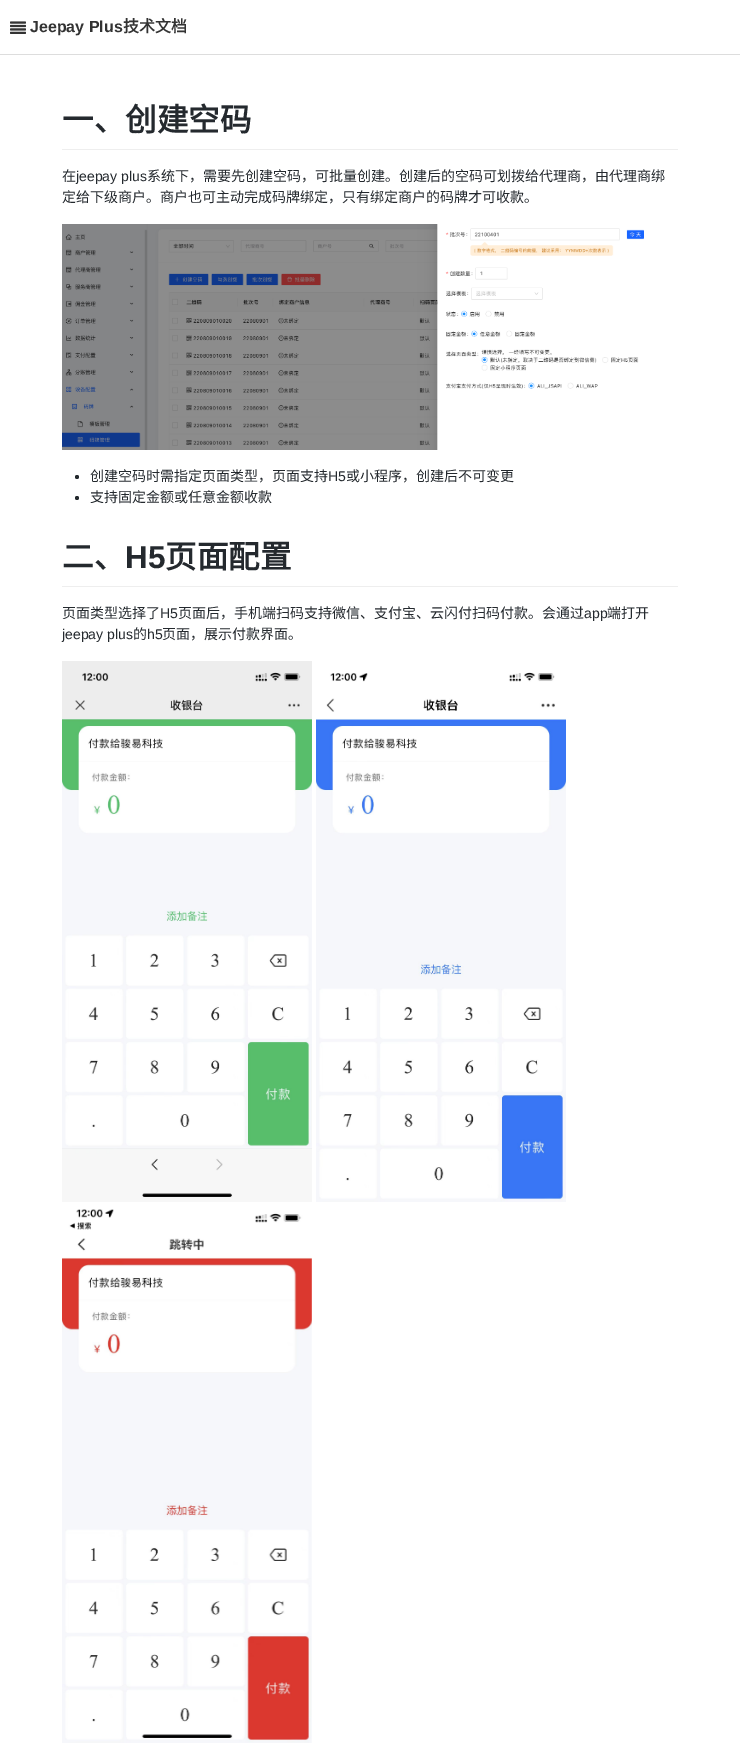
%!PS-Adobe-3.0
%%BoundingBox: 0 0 740 1743
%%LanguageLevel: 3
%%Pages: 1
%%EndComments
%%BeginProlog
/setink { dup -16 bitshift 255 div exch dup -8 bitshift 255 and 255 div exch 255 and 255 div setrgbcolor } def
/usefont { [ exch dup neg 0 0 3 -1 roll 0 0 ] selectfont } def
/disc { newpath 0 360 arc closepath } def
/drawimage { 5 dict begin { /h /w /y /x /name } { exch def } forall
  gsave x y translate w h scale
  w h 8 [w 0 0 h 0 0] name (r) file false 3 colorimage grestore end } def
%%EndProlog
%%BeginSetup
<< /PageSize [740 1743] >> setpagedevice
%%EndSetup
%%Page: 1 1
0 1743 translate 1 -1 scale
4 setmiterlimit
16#FFFFFF setink
0 0 740 1743 rectfill
(img1.raw) 10 21 16 13 drawimage
/LiberationSans-Bold 16 usefont
16#333333 setink
30 32 moveto (Jeepay Plus) show
/NotoSansCJKSC-Bold 16 usefont
123 32 moveto (技术文档) show
16#DDDDDD setink
0 54 740 1 rectfill
16#EEEEEE setink
62 149 616 1 rectfill
/NotoSansCJKSC-Bold 31.5 usefont
16#24292E setink
62 131 moveto (一、创建空码) show
/NotoSansCJKSC-Regular 14 usefont
62 181 moveto (在) show
/LiberationSans-Regular 14 usefont
76 181 moveto (jeepay plus) show
/NotoSansCJKSC-Regular 14 usefont
147 181 moveto (系统下，需要先创建空码，可批量创建。创建后的空码可划拨给代理商，由代理商绑) show
62 202 moveto (定给下级商户。商户也可主动完成码牌绑定，只有绑定商户的码牌才可收款。) show
(img2.raw) 62 224 582 226 drawimage
77 477 2 disc fill
90 481 moveto (创建空码时需指定页面类型，页面支持) show
/LiberationSans-Regular 14 usefont
328 481 moveto (H5) show
/NotoSansCJKSC-Regular 14 usefont
346 481 moveto (或小程序，创建后不可变更) show
77 498 2 disc fill
90 502 moveto (支持固定金额或任意金额收款) show
16#EEEEEE setink
62 586 616 1 rectfill
/NotoSansCJKSC-Bold 31.5 usefont
16#24292E setink
62 568 moveto (二、) show
/LiberationSans-Bold 31.5 usefont
125 568 moveto (H5) show
/NotoSansCJKSC-Bold 31.5 usefont
165 568 moveto (页面配置) show
/NotoSansCJKSC-Regular 14 usefont
62 618 moveto (页面类型选择了) show
/LiberationSans-Regular 14 usefont
160 618 moveto (H5) show
/NotoSansCJKSC-Regular 14 usefont
178 618 moveto (页面后，手机端扫码支持微信、支付宝、云闪付扫码付款。会通过) show
/LiberationSans-Regular 14 usefont
584 618 moveto (app) show
/NotoSansCJKSC-Regular 14 usefont
607 618 moveto (端打开) show
/LiberationSans-Regular 14 usefont
62 639 moveto (jeepay plus) show
/NotoSansCJKSC-Regular 14 usefont
133 639 moveto (的) show
/LiberationSans-Regular 14 usefont
147 639 moveto (h5) show
/NotoSansCJKSC-Regular 14 usefont
162 639 moveto (页面，展示付款界面。) show
(img3.raw) 62 661 250 541 drawimage
(img4.raw) 316 672 250 530 drawimage
(img5.raw) 62 1209 250 534 drawimage
showpage
%%EOF
